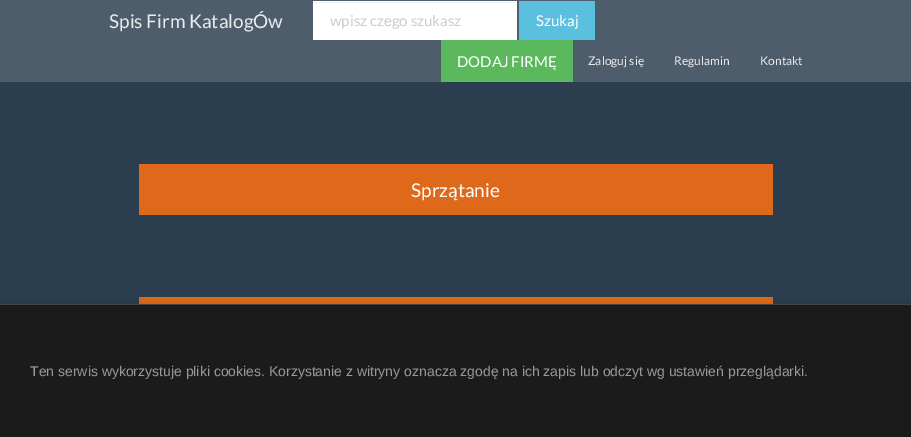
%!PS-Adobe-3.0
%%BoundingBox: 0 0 911 437
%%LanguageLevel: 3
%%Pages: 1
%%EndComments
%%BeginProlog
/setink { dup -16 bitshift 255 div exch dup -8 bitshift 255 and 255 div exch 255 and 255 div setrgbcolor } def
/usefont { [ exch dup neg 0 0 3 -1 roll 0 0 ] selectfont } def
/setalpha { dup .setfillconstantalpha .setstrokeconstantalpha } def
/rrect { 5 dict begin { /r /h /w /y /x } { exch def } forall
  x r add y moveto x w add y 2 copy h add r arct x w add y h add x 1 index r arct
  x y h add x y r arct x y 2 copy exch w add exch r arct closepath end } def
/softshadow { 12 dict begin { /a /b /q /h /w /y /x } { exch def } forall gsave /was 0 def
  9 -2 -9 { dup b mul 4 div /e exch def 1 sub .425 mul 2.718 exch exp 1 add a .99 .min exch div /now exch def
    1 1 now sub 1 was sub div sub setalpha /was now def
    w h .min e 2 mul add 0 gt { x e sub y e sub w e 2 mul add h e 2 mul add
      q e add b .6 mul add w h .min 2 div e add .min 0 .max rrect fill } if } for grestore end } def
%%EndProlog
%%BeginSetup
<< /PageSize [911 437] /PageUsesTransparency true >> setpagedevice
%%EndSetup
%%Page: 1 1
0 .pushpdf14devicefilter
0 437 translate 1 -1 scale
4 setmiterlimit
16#2B3E50 setink
0 0 911 437 rectfill
16#4E5D6C setink
0 0 911 82 rectfill
/Lato-Regular 19 usefont
16#EBEBEB setink
109 28 moveto (Spis Firm KatalogÓw) show
16#FFFFFF setink
313 1 204 39 rectfill
16#ECECEC setink
314 2 202 1 rectfill
/Lato-Regular 15 usefont
16#CCCCCC setink
330 26 moveto (wpisz czego szukasz) show
16#5BC0DE setink
519 1 76 39 rectfill
16#FFFFFF setink
536 26 moveto (Szukaj) show
16#5CB85C setink
441 40 132 42 rectfill
16#FFFFFF setink
457 67 moveto (DODAJ FIRMĘ) show
/Lato-Regular 12 usefont
16#EBEBEB setink
[
    [(Zaloguj się) 588 65]
    [(Regulamin) 674 65]
    [(Kontakt) 760 65]
] { aload pop moveto show } forall
16#DF691A setink
139 164 634 51 rectfill
/Lato-Regular 19 usefont
16#FFFFFF setink
411 197 moveto (Sprzątanie) show
16#DF691A setink
139 297 634 7 rectfill
16#000000 setink
0 304 911 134 0 4 0.15 softshadow
16#1B1B1B setink
0 305 911 132 rectfill
16#444444 setink
0 304 911 1 rectfill
/LiberationSans-Regular 14 usefont
16#999999 setink
30 376 moveto (Ten serwis wykorzystuje pliki cookies. Korzystanie z witryny oznacza zgodę na ich zapis lub odczyt wg ustawień przeglądarki.) show
.poppdf14devicefilter showpage
%%EOF
